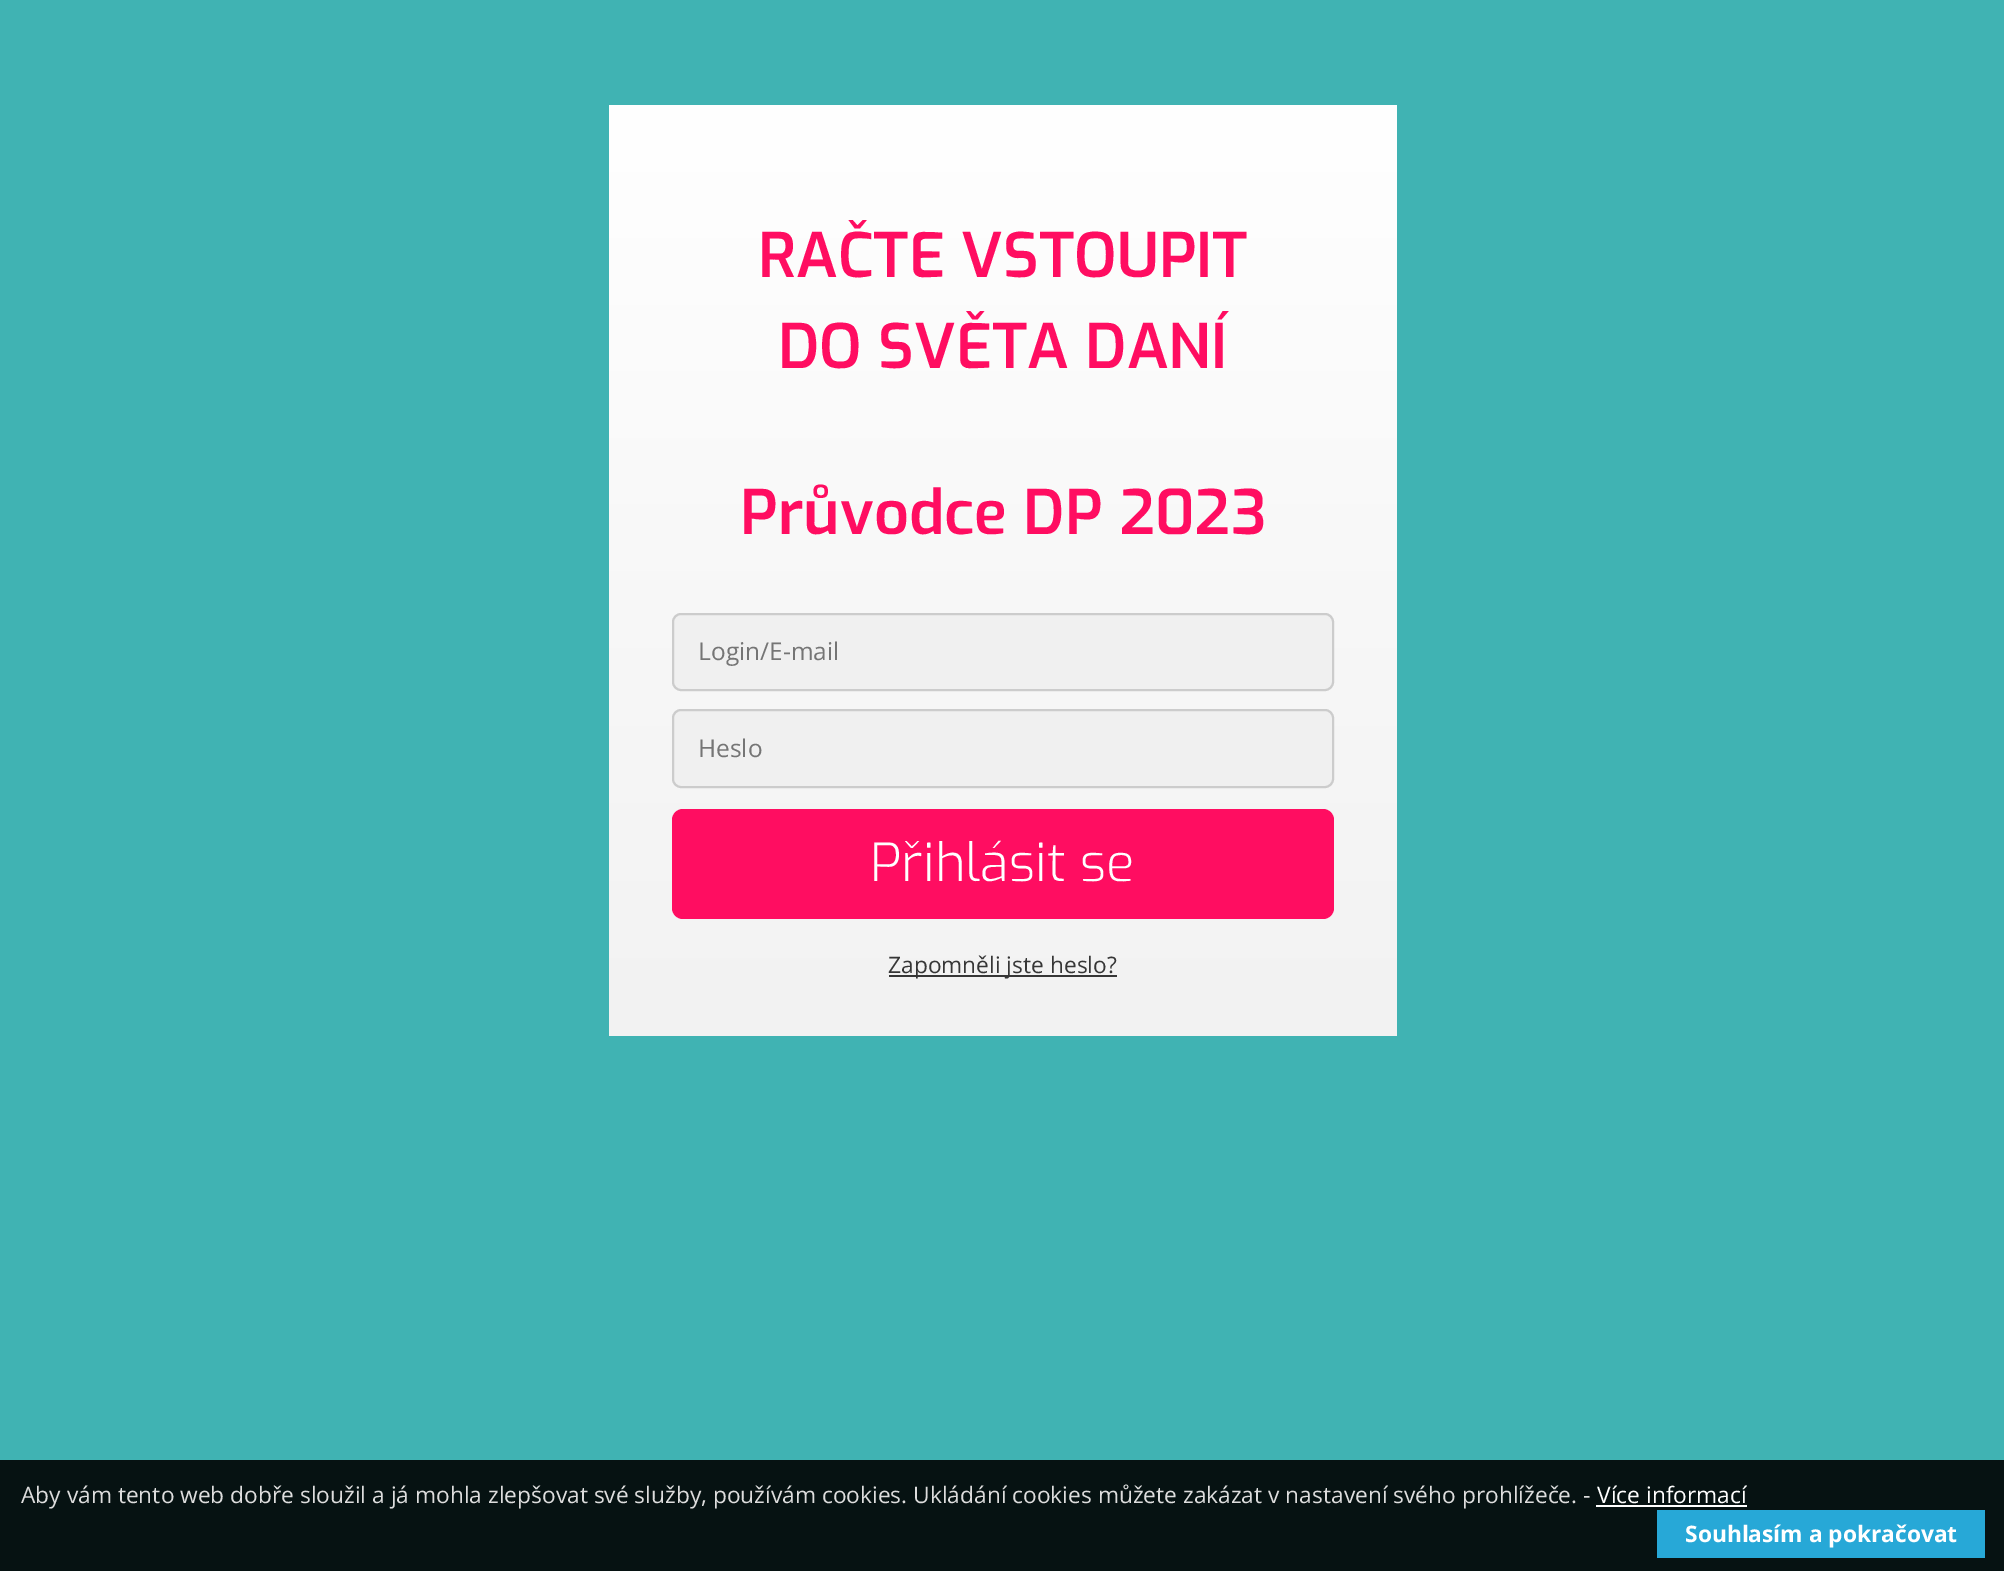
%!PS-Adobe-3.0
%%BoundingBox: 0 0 2004 1571
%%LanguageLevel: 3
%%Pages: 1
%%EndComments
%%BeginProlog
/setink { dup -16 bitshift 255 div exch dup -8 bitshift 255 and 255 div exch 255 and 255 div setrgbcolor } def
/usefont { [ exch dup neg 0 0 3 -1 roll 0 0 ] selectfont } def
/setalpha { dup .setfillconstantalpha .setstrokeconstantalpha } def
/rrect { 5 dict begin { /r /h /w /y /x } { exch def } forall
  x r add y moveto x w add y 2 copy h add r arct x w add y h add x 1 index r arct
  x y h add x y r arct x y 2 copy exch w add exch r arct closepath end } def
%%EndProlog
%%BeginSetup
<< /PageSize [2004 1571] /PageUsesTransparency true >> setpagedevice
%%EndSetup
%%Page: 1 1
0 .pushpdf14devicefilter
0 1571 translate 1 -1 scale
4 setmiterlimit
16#40B3B3 setink
0 0 2004 1571 rectfill
gsave 609 105 moveto 1397 105 lineto 1397 1036 lineto 609 1036 lineto closepath clip newpath
<< /ShadingType 2 /ColorSpace /DeviceRGB /Coords [1003 105 1003 1036] /Extend [true true] /Function << /FunctionType 2 /Domain [0 1] /C0 [1 1 1] /C1 [0.949 0.949 0.949] /N 1 >> >> shfill grestore
/Exo-SemiBold 61.25 usefont
16#FF0D61 setink
[
    [(RAČTE VSTOUPIT) 758 277]
    [(DO SVĚTA DANÍ) 778 368]
    [(Průvodce DP 2023) 740 534]
] { aload pop moveto show } forall
16#F0F0F0 setink
672 613 662 78 9 rrect fill
0.15 setalpha
16#000000 setink
2 setlinewidth
673 614 660 76 8 rrect stroke
/OpenSans-Regular 24.5 usefont
1 setalpha
16#757575 setink
698 660 moveto (Login/E-mail) show
16#F0F0F0 setink
672 709 662 79 9 rrect fill
0.15 setalpha
16#000000 setink
673 710 660 77 8 rrect stroke
1 setalpha
16#757575 setink
698 757 moveto (Heslo) show
16#FF0D61 setink
672 809 662 110 11 rrect fill
/Exo-Light 52.5 usefont
16#FFFFFF setink
870 881 moveto (Přihlásit se) show
16#363636 setink
889 975 228 2 rectfill
/OpenSans-Regular 22.75 usefont
888 973 moveto (Zapomněli jste heslo?) show
16#061212 setink
0 1460 2004 111 rectfill
16#DDDDDD setink
21 1503 moveto (Aby vám tento web dobře sloužil a já mohla zlepšovat své služby, používám cookies. Ukládání cookies můžete zakázat v nastavení svého prohlížeče. -) show
16#FFFFFF setink
1597 1503 moveto (Více informací) show
1596 1505 151 2 rectfill
16#27A8D7 setink
1657 1510 328 48 rectfill
/OpenSans-Bold 22.75 usefont
16#FFFFFF setink
1685 1542 moveto (Souhlasím a pokračovat) show
.poppdf14devicefilter showpage
%%EOF
